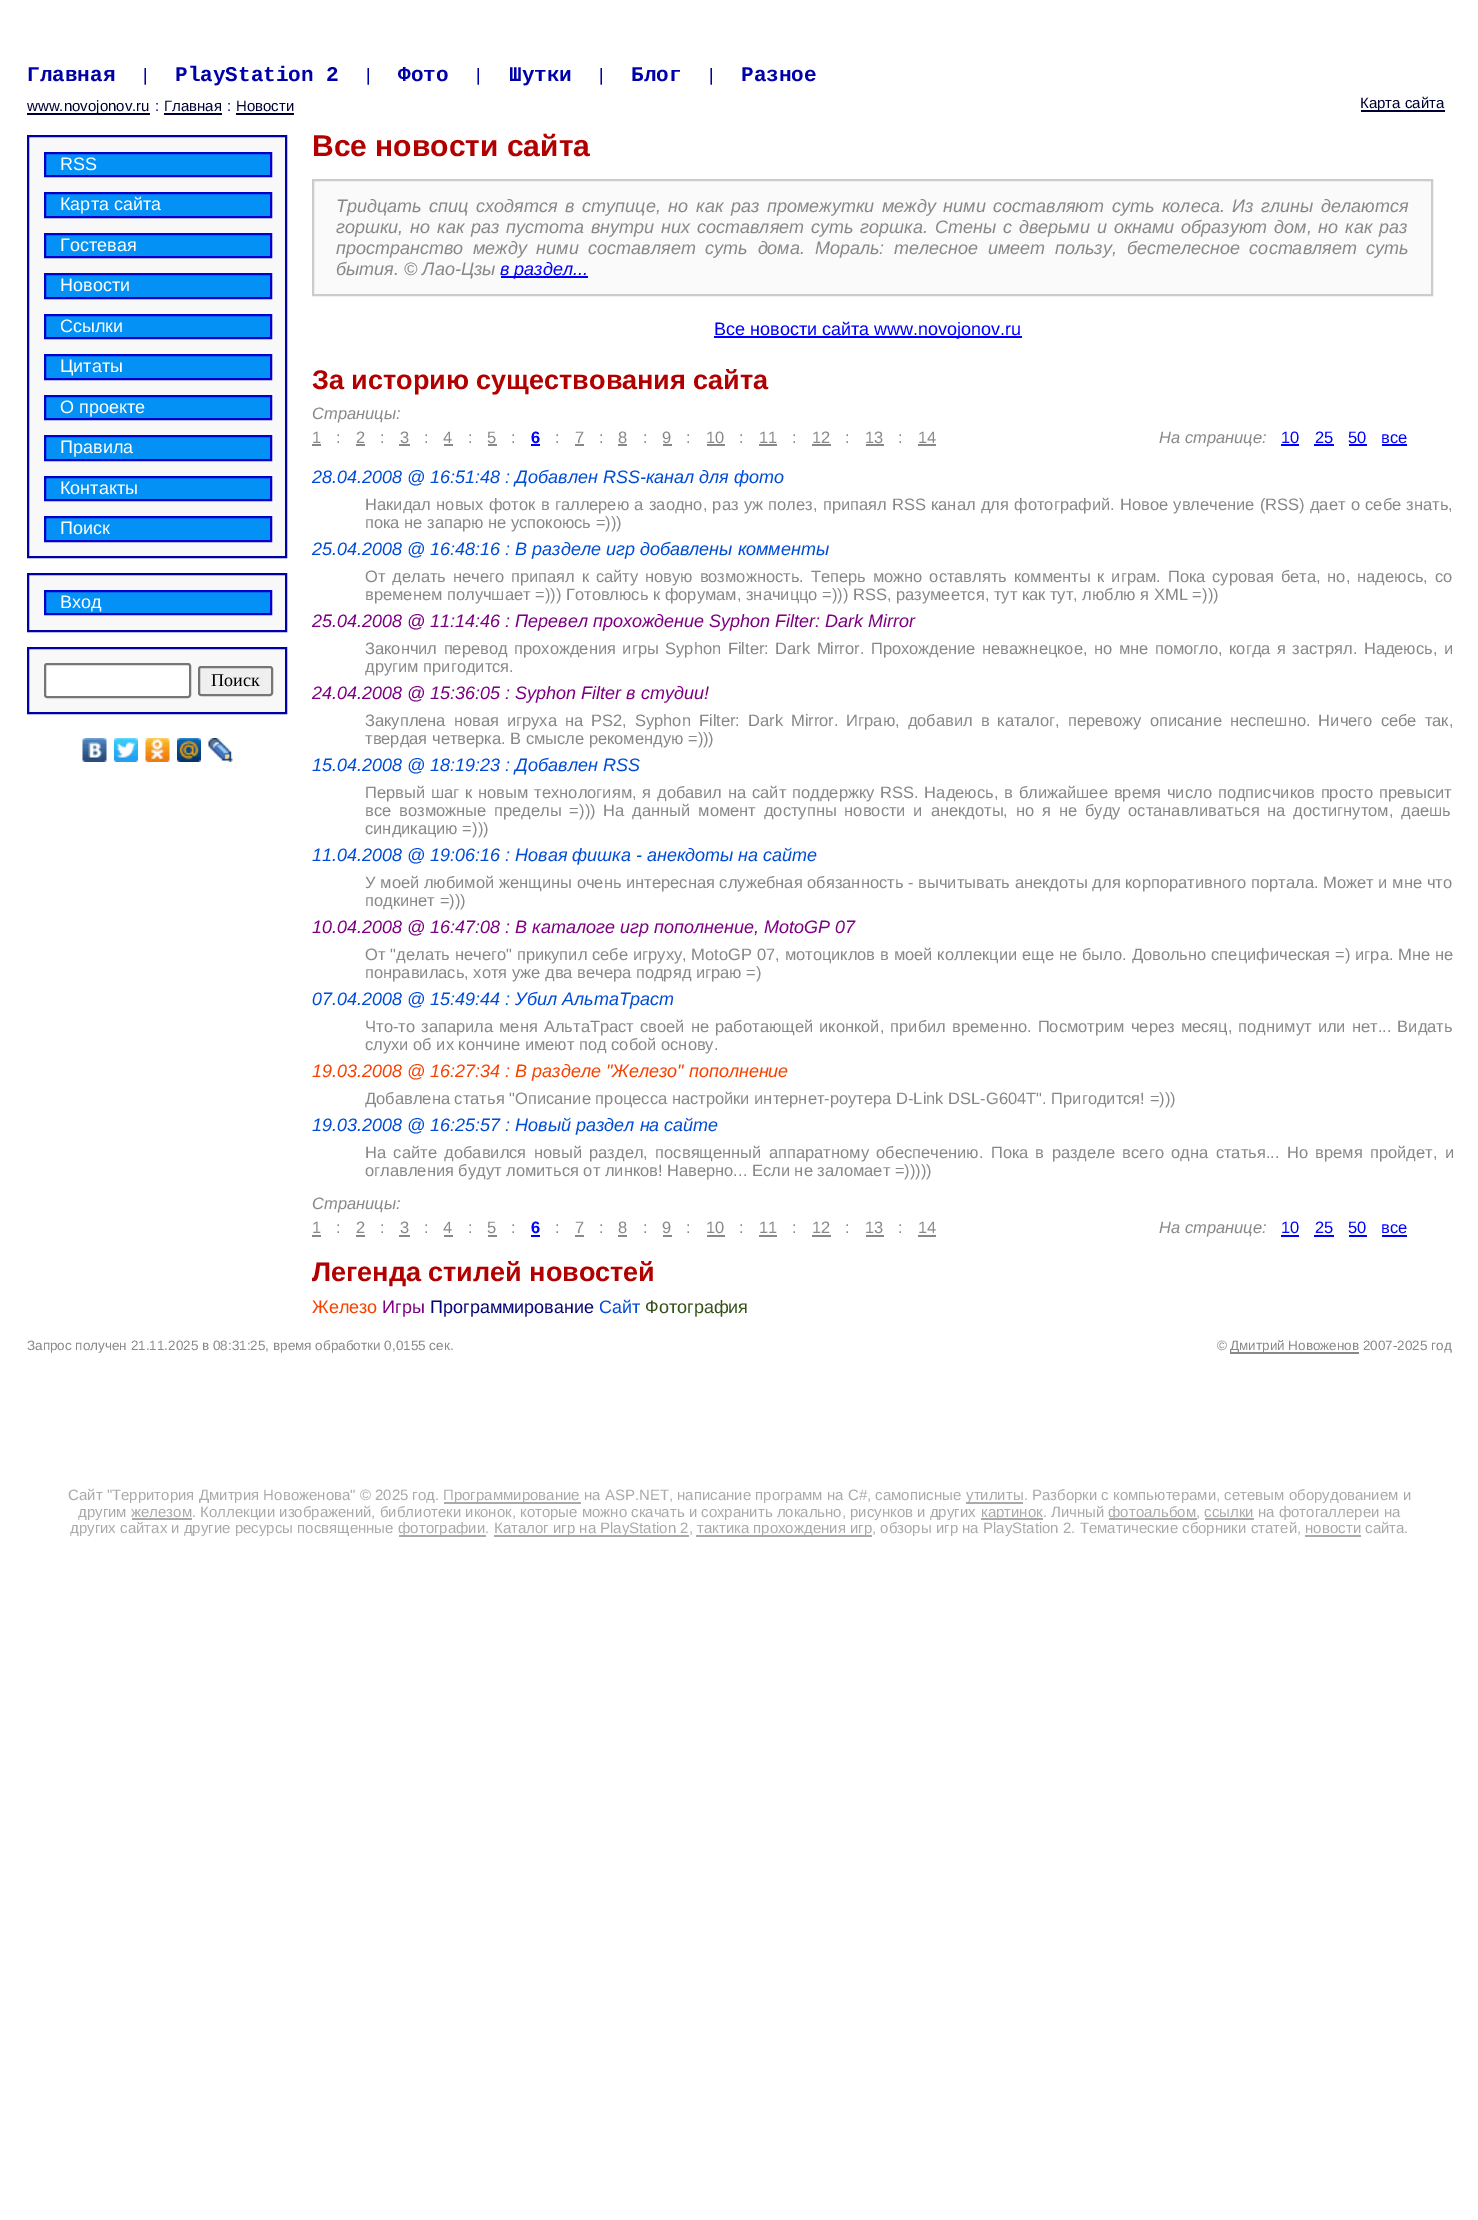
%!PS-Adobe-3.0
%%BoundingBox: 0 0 1478 2220
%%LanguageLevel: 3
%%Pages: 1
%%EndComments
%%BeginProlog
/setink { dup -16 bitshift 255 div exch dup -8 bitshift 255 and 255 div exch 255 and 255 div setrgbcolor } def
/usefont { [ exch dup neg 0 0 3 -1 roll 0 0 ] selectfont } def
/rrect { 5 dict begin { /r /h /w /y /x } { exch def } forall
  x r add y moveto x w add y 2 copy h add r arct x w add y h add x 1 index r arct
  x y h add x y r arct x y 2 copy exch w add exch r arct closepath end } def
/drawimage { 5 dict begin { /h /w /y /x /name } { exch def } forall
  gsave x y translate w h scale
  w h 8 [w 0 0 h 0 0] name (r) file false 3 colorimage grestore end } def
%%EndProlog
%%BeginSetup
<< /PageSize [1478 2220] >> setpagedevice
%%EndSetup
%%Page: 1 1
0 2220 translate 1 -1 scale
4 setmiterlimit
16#FFFFFF setink
0 0 1478 2220 rectfill
/LiberationMono-Bold 21 usefont
16#0000AA setink
27 81 moveto (Главная) show
/LiberationSans-Regular 18 usefont
143 81 moveto (|) show
/LiberationMono-Bold 21 usefont
175 81 moveto (PlayStation 2) show
/LiberationSans-Regular 18 usefont
366 81 moveto (|) show
/LiberationMono-Bold 21 usefont
398 81 moveto (Фото) show
/LiberationSans-Regular 18 usefont
476 81 moveto (|) show
/LiberationMono-Bold 21 usefont
509 81 moveto (Шутки) show
/LiberationSans-Regular 18 usefont
599 81 moveto (|) show
/LiberationMono-Bold 21 usefont
631 81 moveto (Блог) show
/LiberationSans-Regular 18 usefont
709 81 moveto (|) show
/LiberationMono-Bold 21 usefont
741 81 moveto (Разное) show
16#000033 setink
27 113 123 2 rectfill
/LiberationSans-Regular 15 usefont
27 111 moveto (www.novojonov.ru) show
16#0000AA setink
155 111 moveto (:) show
16#000033 setink
164 111 moveto (Главная) show
164 113 58 2 rectfill
16#0000AA setink
227 111 moveto (:) show
16#000033 setink
236 111 moveto (Новости) show
236 113 58 2 rectfill
1361 110 84 2 rectfill
1360 108 moveto (Карта сайта) show
16#F8F8F8 setink
28 136 moveto 286 136 lineto 286 557 lineto 28 557 lineto closepath gsave fill grestore
16#0000AA setink
2 setlinewidth
stroke
16#0391F5 setink
45 153 moveto 271 153 lineto 271 176 lineto 45 176 lineto closepath gsave fill grestore
16#0000CC setink
stroke
/LiberationSans-Regular 18 usefont
16#FFFFFF setink
60 170 moveto (RSS) show
16#0391F5 setink
45 193 moveto 271 193 lineto 271 217 lineto 45 217 lineto closepath gsave fill grestore
16#0000CC setink
stroke
16#FFFFFF setink
60 210 moveto (Карта сайта) show
16#0391F5 setink
45 234 moveto 271 234 lineto 271 257 lineto 45 257 lineto closepath gsave fill grestore
16#0000CC setink
stroke
16#FFFFFF setink
60 251 moveto (Гостевая) show
16#0391F5 setink
45 274 moveto 271 274 lineto 271 298 lineto 45 298 lineto closepath gsave fill grestore
16#0000CC setink
stroke
16#FFFFFF setink
60 291 moveto (Новости) show
16#0391F5 setink
45 315 moveto 271 315 lineto 271 338 lineto 45 338 lineto closepath gsave fill grestore
16#0000CC setink
stroke
16#FFFFFF setink
60 332 moveto (Ссылки) show
16#0391F5 setink
45 355 moveto 271 355 lineto 271 379 lineto 45 379 lineto closepath gsave fill grestore
16#0000CC setink
stroke
16#FFFFFF setink
60 372 moveto (Цитаты) show
16#0391F5 setink
45 396 moveto 271 396 lineto 271 419 lineto 45 419 lineto closepath gsave fill grestore
16#0000CC setink
stroke
16#FFFFFF setink
60 413 moveto (О проекте) show
16#0391F5 setink
45 436 moveto 271 436 lineto 271 460 lineto 45 460 lineto closepath gsave fill grestore
16#0000CC setink
stroke
16#FFFFFF setink
60 453 moveto (Правила) show
16#0391F5 setink
45 477 moveto 271 477 lineto 271 500 lineto 45 500 lineto closepath gsave fill grestore
16#0000CC setink
stroke
16#FFFFFF setink
60 494 moveto (Контакты) show
16#0391F5 setink
45 517 moveto 271 517 lineto 271 541 lineto 45 541 lineto closepath gsave fill grestore
16#0000CC setink
stroke
16#FFFFFF setink
60 534 moveto (Поиск) show
16#F8F8F8 setink
28 574 moveto 286 574 lineto 286 631 lineto 28 631 lineto closepath gsave fill grestore
16#0000AA setink
stroke
16#0391F5 setink
45 591 moveto 271 591 lineto 271 614 lineto 45 614 lineto closepath gsave fill grestore
16#0000CC setink
stroke
16#FFFFFF setink
60 608 moveto (Вход) show
16#F8F8F8 setink
28 648 moveto 286 648 lineto 286 713 lineto 28 713 lineto closepath gsave fill grestore
16#0000AA setink
stroke
16#FFFFFF setink
45 664 145 33 2 rrect gsave fill grestore
16#767676 setink
stroke
16#EFEFEF setink
199 667 73 28 2 rrect gsave fill grestore
16#767676 setink
stroke
/LiberationSerif-Regular 18 usefont
16#000000 setink
211 686 moveto (Поиск) show
(img1.raw) 82 738 25 24 drawimage
(img2.raw) 114 738 24 24 drawimage
(img3.raw) 145 738 25 24 drawimage
(img4.raw) 177 738 24 24 drawimage
(img5.raw) 208 738 25 24 drawimage
/LiberationSans-Bold 30 usefont
16#B20000 setink
312 156 moveto (Все новости сайта) show
16#FAFAFA setink
313 180 moveto 1432 180 lineto 1432 295 lineto 313 295 lineto closepath gsave fill grestore
16#CCCCCC setink
stroke
/LiberationSans-Italic 18 usefont
16#888888 setink
336 212 moveto 2.75 0 32 (Тридцать спиц сходятся в ступице, но как раз промежутки между ними составляют суть колеса. Из глины делаются) widthshow
336 233 moveto 1.9 0 32 (горшки, но как раз пустота внутри них составляет суть горшка. Стены с дверьми и окнами образуют дом, но как раз) widthshow
336 254 moveto 4.75 0 32 (пространство между ними составляет суть дома. Мораль: телесное имеет пользу, бестелесное составляет суть) widthshow
336 275 moveto (бытия. © Лао-Цзы) show
16#0000FF setink
501 276 87 2 rectfill
500 275 moveto (в раздел...) show
714 336 308 2 rectfill
/LiberationSans-Regular 18 usefont
714 335 moveto (Все новости сайта www.novojonov.ru) show
/LiberationSans-Bold 27 usefont
16#B20000 setink
312 389 moveto (За историю существования сайта) show
/LiberationSans-Italic 16.5 usefont
16#888888 setink
312 419 moveto (Страницы:) show
/LiberationSans-Regular 16.5 usefont
312 443 moveto (1) show
312 444 9 2 rectfill
336 443 moveto (:) show
356 443 moveto (2) show
356 444 9 2 rectfill
380 443 moveto (:) show
400 443 moveto (3) show
399 444 11 2 rectfill
424 443 moveto (:) show
443 443 moveto (4) show
444 444 9 2 rectfill
468 443 moveto (:) show
487 443 moveto (5) show
488 444 9 2 rectfill
511 443 moveto (:) show
/LiberationSans-Bold 16.5 usefont
16#0000FF setink
531 443 moveto (6) show
531 444 9 2 rectfill
/LiberationSans-Regular 16.5 usefont
16#888888 setink
555 443 moveto (:) show
575 443 moveto (7) show
575 444 9 2 rectfill
599 443 moveto (:) show
618 443 moveto (8) show
618 444 9 2 rectfill
643 443 moveto (:) show
662 443 moveto (9) show
663 444 9 2 rectfill
686 443 moveto (:) show
706 443 moveto (10) show
707 444 18 2 rectfill
739 443 moveto (:) show
759 443 moveto (11) show
759 444 18 2 rectfill
792 443 moveto (:) show
812 443 moveto (12) show
812 444 19 2 rectfill
845 443 moveto (:) show
865 443 moveto (13) show
866 444 18 2 rectfill
898 443 moveto (:) show
918 443 moveto (14) show
918 444 18 2 rectfill
/LiberationSans-Italic 16.5 usefont
1159 443 moveto (На странице:) show
/LiberationSans-Regular 16.5 usefont
16#0000FF setink
1281 443 moveto (10) show
1281 444 18 2 rectfill
1315 443 moveto (25) show
1314 444 20 2 rectfill
1348 443 moveto (50) show
1349 444 18 2 rectfill
1381 443 moveto (все) show
1382 444 25 2 rectfill
/LiberationSans-Italic 18 usefont
16#004CD8 setink
312 483 moveto (28.04.2008 @ 16:51:48 : Добавлен RSS-канал для фото) show
/LiberationSans-Regular 16.5 usefont
16#888888 setink
365 510 moveto 0.7 0 32 (Накидал новых фоток в галлерею а заодно, раз уж полез, припаял RSS канал для фотографий. Новое увлечение \(RSS\) дает о себе знать,) widthshow
365 528 moveto (пока не запарю не успокоюсь =\)\)\)) show
/LiberationSans-Italic 18 usefont
16#004CD8 setink
312 555 moveto (25.04.2008 @ 16:48:16 : В разделе игр добавлены комменты) show
/LiberationSans-Regular 16.5 usefont
16#888888 setink
365 582 moveto 2.25 0 32 (От делать нечего припаял к сайту новую возможность. Теперь можно оставлять комменты к играм. Пока суровая бета, но, надеюсь, со) widthshow
365 600 moveto (временем получшает =\)\)\) Готовлюсь к форумам, значиццо =\)\)\) RSS, разумеется, тут как тут, люблю я XML =\)\)\)) show
/LiberationSans-Italic 18 usefont
16#7D0082 setink
312 627 moveto (25.04.2008 @ 11:14:46 : Перевел прохождение Syphon Filter: Dark Mirror) show
/LiberationSans-Regular 16.5 usefont
16#888888 setink
365 654 moveto 1.9 0 32 (Закончил перевод прохождения игры Syphon Filter: Dark Mirror. Прохождение неважнецкое, но мне помогло, когда я застрял. Надеюсь, и) widthshow
365 672 moveto (другим пригодится.) show
/LiberationSans-Italic 18 usefont
16#7D0082 setink
312 699 moveto (24.04.2008 @ 15:36:05 : Syphon Filter в студии!) show
/LiberationSans-Regular 16.5 usefont
16#888888 setink
365 726 moveto 3.4 0 32 (Закуплена новая игруха на PS2, Syphon Filter: Dark Mirror. Играю, добавил в каталог, перевожу описание неспешно. Ничего себе так,) widthshow
365 744 moveto (твердая четверка. В смысле рекомендую =\)\)\)) show
/LiberationSans-Italic 18 usefont
16#004CD8 setink
312 771 moveto (15.04.2008 @ 18:19:23 : Добавлен RSS) show
/LiberationSans-Regular 16.5 usefont
16#888888 setink
365 798 moveto 1.25 0 32 (Первый шаг к новым технологиям, я добавил на сайт поддержку RSS. Надеюсь, в ближайшее время число подписчиков просто превысит) widthshow
365 816 moveto 3.25 0 32 (все возможные пределы =\)\)\) На данный момент доступны новости и анекдоты, но я не буду останавливаться на достигнутом, даешь) widthshow
365 834 moveto (синдикацию =\)\)\)) show
/LiberationSans-Italic 18 usefont
16#004CD8 setink
312 861 moveto (11.04.2008 @ 19:06:16 : Новая фишка - анекдоты на сайте) show
/LiberationSans-Regular 16.5 usefont
16#888888 setink
365 888 moveto 0.1 0 32 (У моей любимой женщины очень интересная служебная обязанность - вычитывать анекдоты для корпоративного портала. Может и мне что) widthshow
365 906 moveto (подкинет =\)\)\)) show
/LiberationSans-Italic 18 usefont
16#7D0082 setink
312 933 moveto (10.04.2008 @ 16:47:08 : В каталоге игр пополнение, MotoGP 07) show
/LiberationSans-Regular 16.5 usefont
16#888888 setink
365 960 moveto 0.25 0 32 (От "делать нечего" прикупил себе игруху, MotoGP 07, мотоциклов в моей коллекции еще не было. Довольно специфическая =\) игра. Мне не) widthshow
365 978 moveto (понравилась, хотя уже два вечера подряд играю =\)) show
/LiberationSans-Italic 18 usefont
16#004CD8 setink
312 1005 moveto (07.04.2008 @ 15:49:44 : Убил АльтаТраст) show
/LiberationSans-Regular 16.5 usefont
16#888888 setink
365 1032 moveto 1.5 0 32 (Что-то запарила меня АльтаТраст своей не работающей иконкой, прибил временно. Посмотрим через месяц, поднимут или нет... Видать) widthshow
365 1050 moveto (слухи об их кончине имеют под собой основу.) show
/LiberationSans-Italic 18 usefont
16#F64200 setink
312 1077 moveto (19.03.2008 @ 16:27:34 : В разделе "Железо" пополнение) show
/LiberationSans-Regular 16.5 usefont
16#888888 setink
365 1104 moveto (Добавлена статья "Описание процесса настройки интернет-роутера D-Link DSL-G604T". Пригодится! =\)\)\)) show
/LiberationSans-Italic 18 usefont
16#004CD8 setink
312 1131 moveto (19.03.2008 @ 16:25:57 : Новый раздел на сайте) show
/LiberationSans-Regular 16.5 usefont
16#888888 setink
365 1158 moveto 2.75 0 32 (На сайте добавился новый раздел, посвященный аппаратному обеспечению. Пока в разделе всего одна статья... Но время пройдет, и) widthshow
365 1176 moveto (оглавления будут ломиться от линков! Наверно... Если не заломает =\)\)\)\)\)) show
/LiberationSans-Italic 16.5 usefont
312 1209 moveto (Страницы:) show
/LiberationSans-Regular 16.5 usefont
312 1233 moveto (1) show
312 1235 9 2 rectfill
336 1233 moveto (:) show
356 1233 moveto (2) show
356 1235 9 2 rectfill
380 1233 moveto (:) show
400 1233 moveto (3) show
399 1235 11 2 rectfill
424 1233 moveto (:) show
443 1233 moveto (4) show
444 1235 9 2 rectfill
468 1233 moveto (:) show
487 1233 moveto (5) show
488 1235 9 2 rectfill
511 1233 moveto (:) show
/LiberationSans-Bold 16.5 usefont
16#0000FF setink
531 1233 moveto (6) show
531 1235 9 2 rectfill
/LiberationSans-Regular 16.5 usefont
16#888888 setink
555 1233 moveto (:) show
575 1233 moveto (7) show
575 1235 9 2 rectfill
599 1233 moveto (:) show
618 1233 moveto (8) show
618 1235 9 2 rectfill
643 1233 moveto (:) show
662 1233 moveto (9) show
663 1235 9 2 rectfill
686 1233 moveto (:) show
706 1233 moveto (10) show
707 1235 18 2 rectfill
739 1233 moveto (:) show
759 1233 moveto (11) show
759 1235 18 2 rectfill
792 1233 moveto (:) show
812 1233 moveto (12) show
812 1235 19 2 rectfill
845 1233 moveto (:) show
865 1233 moveto (13) show
866 1235 18 2 rectfill
898 1233 moveto (:) show
918 1233 moveto (14) show
918 1235 18 2 rectfill
/LiberationSans-Italic 16.5 usefont
1159 1233 moveto (На странице:) show
/LiberationSans-Regular 16.5 usefont
16#0000FF setink
1281 1233 moveto (10) show
1281 1235 18 2 rectfill
1315 1233 moveto (25) show
1314 1235 20 2 rectfill
1348 1233 moveto (50) show
1349 1235 18 2 rectfill
1381 1233 moveto (все) show
1382 1235 25 2 rectfill
/LiberationSans-Bold 27 usefont
16#B20000 setink
312 1281 moveto (Легенда стилей новостей) show
/LiberationSans-Regular 18 usefont
16#F64200 setink
312 1313 moveto (Железо) show
16#7D0082 setink
382 1313 moveto (Игры) show
16#060578 setink
430 1313 moveto (Программирование) show
16#004CD8 setink
599 1313 moveto (Сайт) show
16#355219 setink
645 1313 moveto (Фотография) show
/LiberationSans-Regular 13.5 usefont
16#888888 setink
27 1350 moveto (Запрос получен 21.11.2025 в 08:31:25, время обработки 0,0155 сек.) show
1217 1350 moveto (©) show
1230 1352 129 2 rectfill
1230 1350 moveto (Дмитрий Новоженов 2007-2025 год) show
/LiberationSans-Regular 15 usefont
16#AAAAAA setink
68 1500 moveto (Сайт "Территория Дмитрия Новоженова" © 2025 год.) show
444 1502 137 2 rectfill
443 1500 moveto (Программирование на ASP.NET, написание программ на C#, самописные) show
966 1502 57 2 rectfill
966 1500 moveto (утилиты. Разборки с компьютерами, сетевым оборудованием и) show
78 1517 moveto (другим железом. Коллекции изображений, библиотеки иконок, которые можно скачать и сохранить локально, рисунков и других) show
981 1518 62 2 rectfill
981 1517 moveto (картинок. Личный) show
1109 1518 88 2 rectfill
1108 1517 moveto (фотоальбом, ссылки на фотогаллереи на) show
132 1518 60 2 rectfill
1205 1518 49 2 rectfill
70 1533 moveto (других сайтах и другие ресурсы посвященные) show
399 1535 87 2 rectfill
398 1533 moveto (фотографии.) show
494 1535 195 2 rectfill
494 1533 moveto (Каталог игр на PlayStation 2,) show
696 1535 176 2 rectfill
697 1533 moveto (тактика прохождения игр, обзоры игр на PlayStation 2. Тематические сборники статей, новости сайта.) show
1305 1535 56 2 rectfill
showpage
%%EOF
